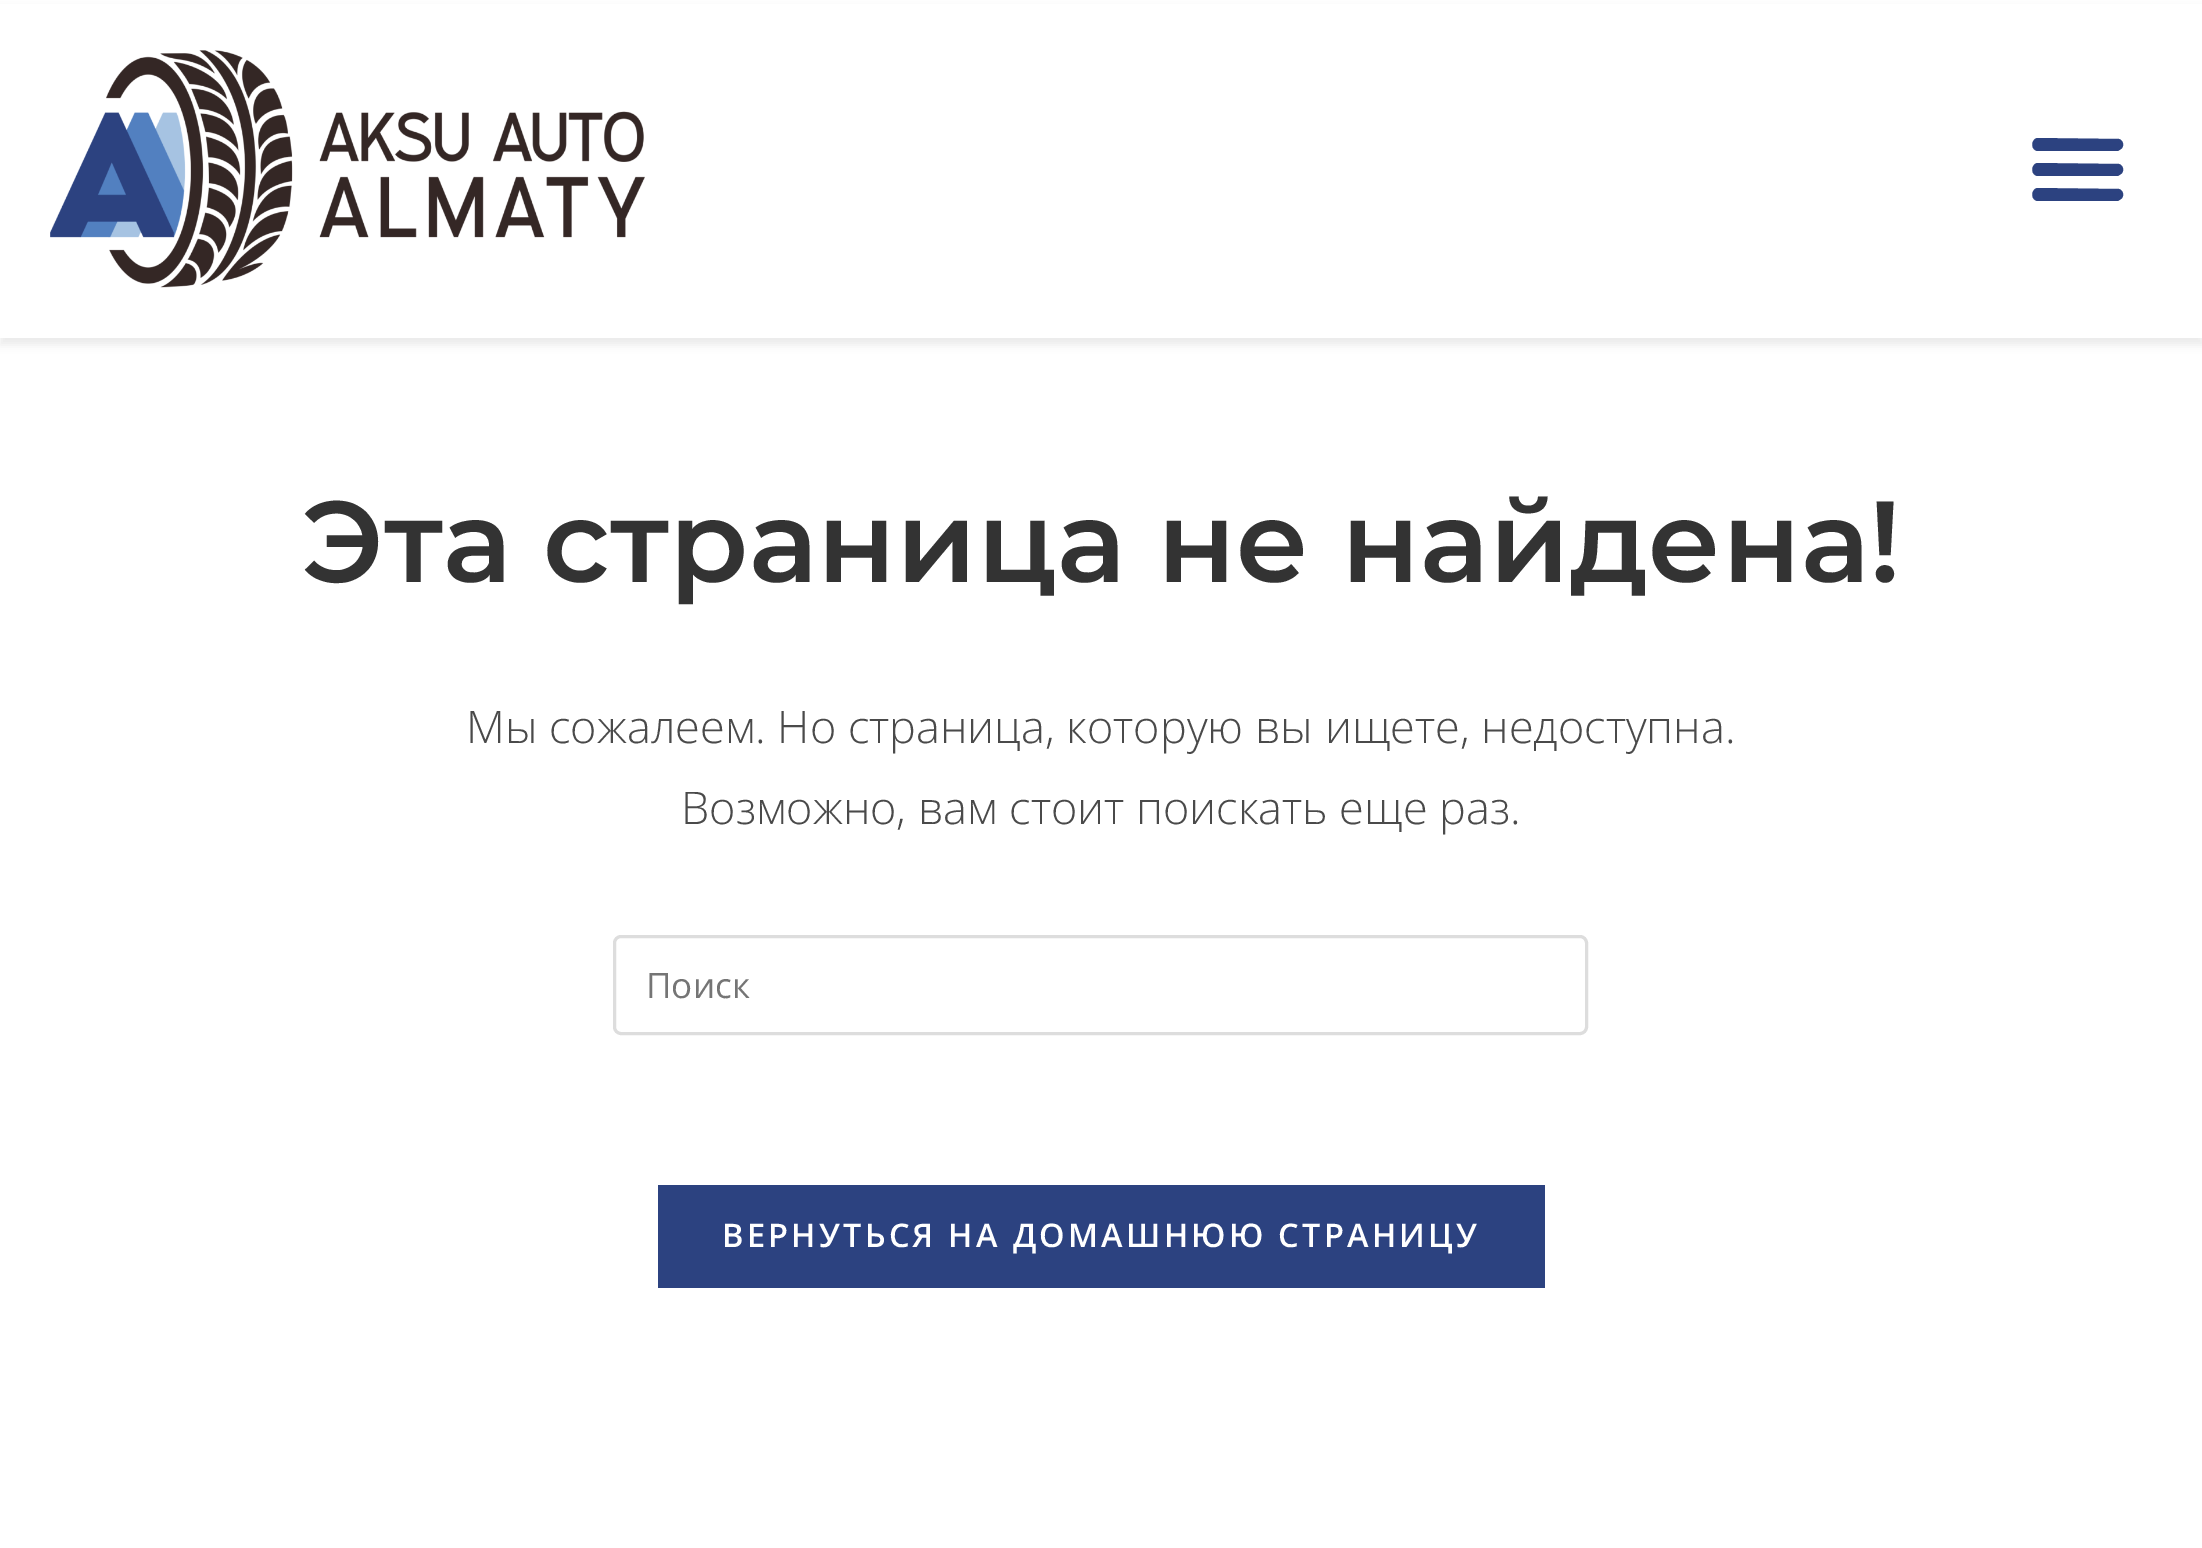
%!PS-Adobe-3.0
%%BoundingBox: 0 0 2202 1548
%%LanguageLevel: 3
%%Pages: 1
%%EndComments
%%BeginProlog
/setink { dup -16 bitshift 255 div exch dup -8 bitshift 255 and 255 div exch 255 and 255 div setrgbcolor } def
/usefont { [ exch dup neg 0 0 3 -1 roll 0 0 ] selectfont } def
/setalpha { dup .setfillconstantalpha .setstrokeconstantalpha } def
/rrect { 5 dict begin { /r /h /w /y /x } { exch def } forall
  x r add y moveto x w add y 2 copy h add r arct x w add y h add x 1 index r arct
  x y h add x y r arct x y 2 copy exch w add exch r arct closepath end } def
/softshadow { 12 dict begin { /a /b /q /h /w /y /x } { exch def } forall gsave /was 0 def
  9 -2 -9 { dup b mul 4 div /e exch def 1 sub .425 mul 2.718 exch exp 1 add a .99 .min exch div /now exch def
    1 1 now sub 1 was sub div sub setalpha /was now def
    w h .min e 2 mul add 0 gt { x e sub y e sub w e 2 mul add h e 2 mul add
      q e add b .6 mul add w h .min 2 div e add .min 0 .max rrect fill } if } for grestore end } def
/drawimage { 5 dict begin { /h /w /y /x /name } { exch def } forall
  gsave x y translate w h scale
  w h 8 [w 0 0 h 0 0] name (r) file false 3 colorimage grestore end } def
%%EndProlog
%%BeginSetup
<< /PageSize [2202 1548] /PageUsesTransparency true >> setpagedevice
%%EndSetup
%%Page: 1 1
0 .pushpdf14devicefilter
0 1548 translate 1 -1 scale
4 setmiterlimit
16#FFFFFF setink
0 0 2202 1548 rectfill
16#000000 setink
0 8 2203 337 0 4 0.07 softshadow
16#FFFFFF setink
0 4 2202 334 rectfill
(img1.raw) 50 50 595 238 drawimage
16#2C4280 setink
2038 151 moveto 2118 151 lineto 2121 149 lineto 2125 146 2123 140 2119 139 curveto 2037 138 lineto 2030 140 2031 151 2038 151 curveto closepath 2038 176 moveto 2118 176 lineto 2121 174 lineto 2125 171 2123 165 2119 164 curveto 2037 163 lineto 2030 165 2031 176 2038 176 curveto closepath 2038 201 moveto 2118 201 lineto 2121 199 lineto 2125 196 2123 190 2119 189 curveto 2037 188 lineto 2030 190 2031 201 2038 201 curveto closepath fill
/Montserrat-SemiBold 115 usefont
16#333333 setink
302 582 moveto (Эта страница не найдена!) show
/OpenSans-Light 45 usefont
16#4A4A4A setink
466 743 moveto (Мы сожалеем. Но страница, которую вы ищете, недоступна.) show
681 824 moveto (Возможно, вам стоит поискать еще раз.) show
16#DDDDDD setink
3 setlinewidth
614.5 936.5 972 97 6.5 rrect stroke
/OpenSans-Regular 35 usefont
16#757575 setink
646 998 moveto (Поиск) show
16#2C4280 setink
658 1185 887 103 rectfill
/OpenSans-SemiBold 32.5 usefont
16#FFFFFF setink
722 1247 moveto 3.25 0 (ВЕРНУТЬСЯ НА ДОМАШНЮЮ СТРАНИЦУ) ashow
.poppdf14devicefilter showpage
%%EOF
